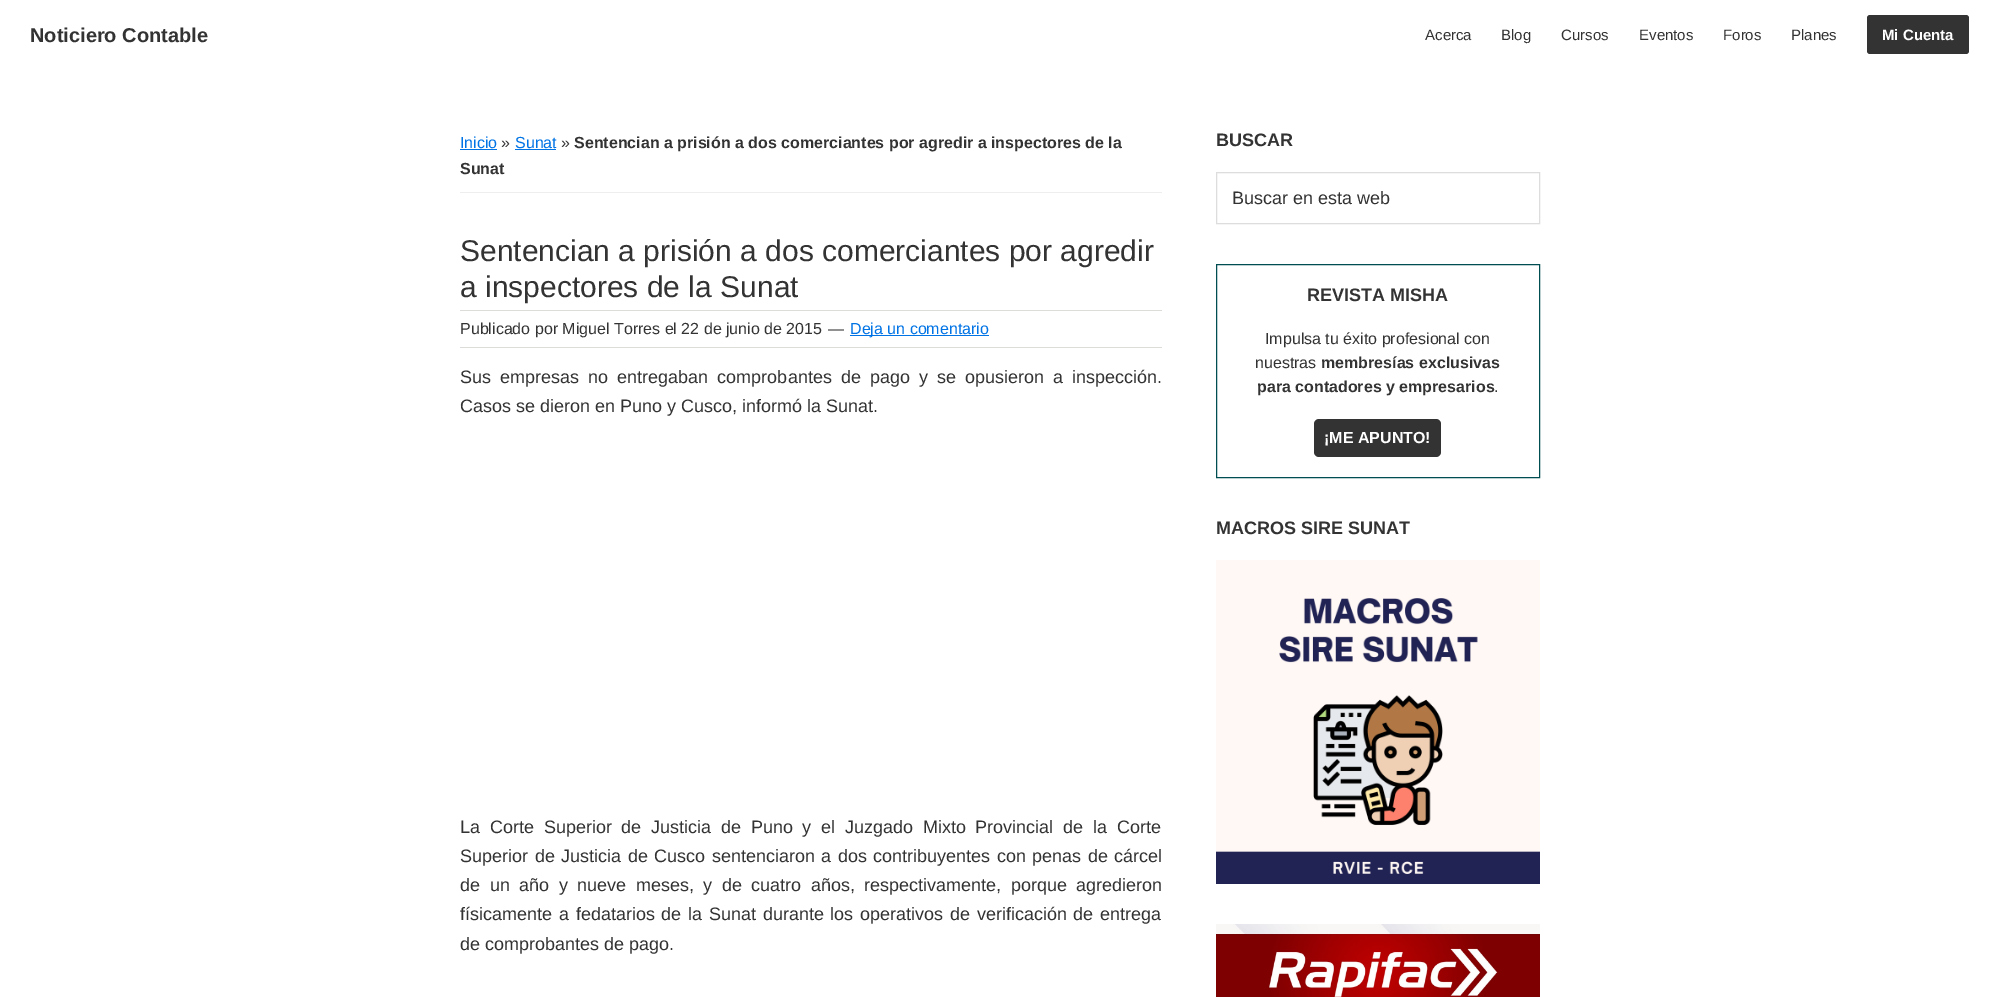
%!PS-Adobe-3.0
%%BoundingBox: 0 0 1999 997
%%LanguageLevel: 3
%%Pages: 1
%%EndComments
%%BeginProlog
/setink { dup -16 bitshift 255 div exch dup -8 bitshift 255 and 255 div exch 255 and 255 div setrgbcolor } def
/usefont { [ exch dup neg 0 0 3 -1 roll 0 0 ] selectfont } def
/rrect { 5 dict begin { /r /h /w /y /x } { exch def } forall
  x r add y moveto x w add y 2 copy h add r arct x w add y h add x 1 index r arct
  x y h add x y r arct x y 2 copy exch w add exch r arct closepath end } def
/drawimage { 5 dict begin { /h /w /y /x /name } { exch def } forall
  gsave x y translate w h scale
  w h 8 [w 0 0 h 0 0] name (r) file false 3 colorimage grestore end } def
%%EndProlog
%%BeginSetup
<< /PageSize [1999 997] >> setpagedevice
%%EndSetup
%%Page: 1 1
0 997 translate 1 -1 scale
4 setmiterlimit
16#FFFFFF setink
0 0 1999 997 rectfill
/LiberationSans-Bold 20 usefont
16#333333 setink
30 42 moveto (Noticiero Contable) show
/LiberationSans-Regular 15 usefont
[
    [(Acerca) 1425 40]
    [(Blog) 1501 40]
    [(Cursos) 1561 40]
    [(Eventos) 1639 40]
    [(Foros) 1723 40]
    [(Planes) 1791 40]
] { aload pop moveto show } forall
1867 15 102 39 3 rrect fill
/LiberationSans-Bold 15 usefont
16#FFFFFF setink
1882 40 moveto (Mi Cuenta) show
16#EEEEEE setink
460 192 702 1 rectfill
/LiberationSans-Regular 16 usefont
16#0073E5 setink
460 148 moveto (Inicio) show
460 149 37 1 rectfill
16#333333 setink
501 148 moveto (») show
16#0073E5 setink
515 148 moveto (Sunat) show
515 149 41 1 rectfill
16#333333 setink
561 148 moveto (») show
/LiberationSans-Bold 16 usefont
574 148 moveto (Sentencian a prisión a dos comerciantes por agredir a inspectores de la) show
460 174 moveto (Sunat) show
/LiberationSans-Regular 30 usefont
460 261 moveto (Sentencian a prisión a dos comerciantes por agredir) show
460 297 moveto (a inspectores de la Sunat) show
16#DDDCD8 setink
460 310 702 1 rectfill
460 347 702 1 rectfill
/LiberationSans-Regular 16 usefont
16#333333 setink
460 334 moveto (Publicado por Miguel Torres el 22 de junio de 2015) show
828 334 moveto (—) show
16#0073E5 setink
850 335 139 1 rectfill
850 334 moveto (Deja un comentario) show
/LiberationSans-Regular 18 usefont
16#333333 setink
460 383 moveto 4.1 0 32 (Sus empresas no entregaban comprobantes de pago y se opusieron a inspección.) widthshow
460 412 moveto (Casos se dieron en Puno y Cusco, informó la Sunat.) show
460 833 moveto 4.75 0 32 (La Corte Superior de Justicia de Puno y el Juzgado Mixto Provincial de la Corte) widthshow
460 862 moveto 1.5 0 32 (Superior de Justicia de Cusco sentenciaron a dos contribuyentes con penas de cárcel) widthshow
460 891 moveto 4.5 0 32 (de un año y nueve meses, y de cuatro años, respectivamente, porque agredieron) widthshow
460 920 moveto 1.75 0 32 (físicamente a fedatarios de la Sunat durante los operativos de verificación de entrega) widthshow
460 950 moveto (de comprobantes de pago.) show
/LiberationSans-Bold 18 usefont
1216 146 moveto (BUSCAR) show
16#DDDDDD setink
1216.5 172.5 323 51 rectstroke
/LiberationSans-Regular 18 usefont
16#333333 setink
1232 204 moveto (Buscar en esta web) show
16#004D52 setink
1216.5 264.5 323 213 rectstroke
/LiberationSans-Bold 18 usefont
16#333333 setink
1307 301 moveto (REVISTA MISHA) show
/LiberationSans-Regular 16 usefont
1265 344 moveto (Impulsa tu éxito profesional con) show
1255 368 moveto (nuestras) show
/LiberationSans-Bold 16 usefont
1321 368 moveto (membresías exclusivas) show
1257 392 moveto (para contadores y empresarios) show
/LiberationSans-Regular 16 usefont
1494 392 moveto (.) show
1314 419 127 38 5 rrect fill
/LiberationSans-Bold 16 usefont
16#FFFFFF setink
1324 443 moveto (¡ME APUNTO!) show
/LiberationSans-Bold 18 usefont
16#333333 setink
1216 534 moveto (MACROS SIRE SUNAT) show
(img1.raw) 1216 560 324 324 drawimage
(img2.raw) 1216 924 324 73 drawimage
showpage
%%EOF
